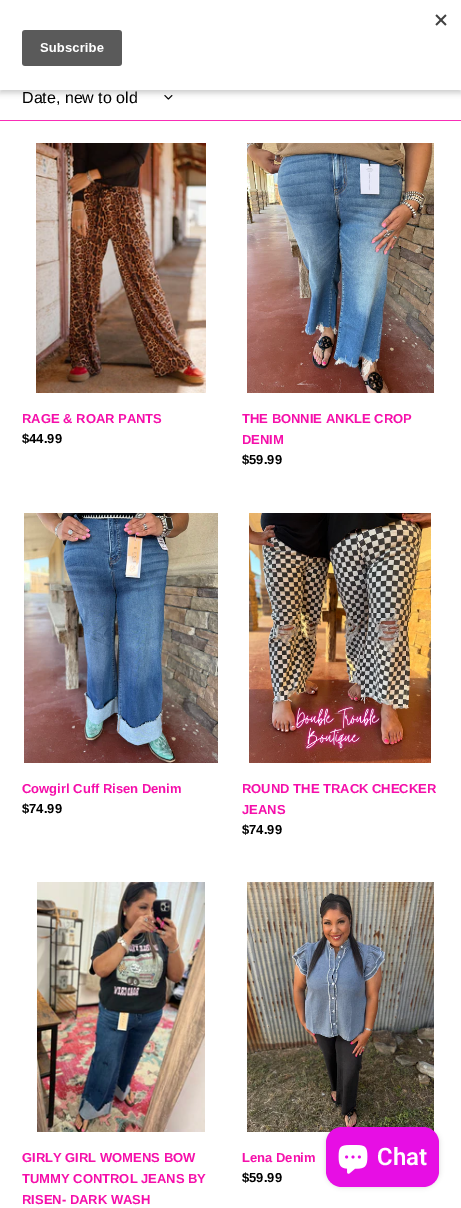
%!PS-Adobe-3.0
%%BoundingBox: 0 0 461 1208
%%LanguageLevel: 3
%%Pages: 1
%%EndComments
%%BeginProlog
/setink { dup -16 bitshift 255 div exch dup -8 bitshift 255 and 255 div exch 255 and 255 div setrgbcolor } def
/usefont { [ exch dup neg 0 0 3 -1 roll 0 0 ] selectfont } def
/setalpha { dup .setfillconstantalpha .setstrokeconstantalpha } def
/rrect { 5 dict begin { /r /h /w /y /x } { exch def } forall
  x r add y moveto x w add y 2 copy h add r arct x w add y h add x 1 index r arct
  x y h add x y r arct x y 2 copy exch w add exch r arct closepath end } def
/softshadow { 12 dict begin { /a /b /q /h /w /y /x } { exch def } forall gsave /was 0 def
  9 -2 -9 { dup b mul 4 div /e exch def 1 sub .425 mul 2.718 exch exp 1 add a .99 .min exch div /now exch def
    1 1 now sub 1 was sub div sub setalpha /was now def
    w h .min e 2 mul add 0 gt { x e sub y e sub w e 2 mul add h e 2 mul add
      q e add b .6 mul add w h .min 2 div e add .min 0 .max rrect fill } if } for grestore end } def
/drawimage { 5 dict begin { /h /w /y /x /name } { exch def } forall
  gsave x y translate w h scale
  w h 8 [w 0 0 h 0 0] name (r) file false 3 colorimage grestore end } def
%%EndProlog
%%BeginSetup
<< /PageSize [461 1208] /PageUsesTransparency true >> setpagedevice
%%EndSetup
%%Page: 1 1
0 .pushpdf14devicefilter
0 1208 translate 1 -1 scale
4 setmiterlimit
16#FFFFFF setink
0 0 461 1208 rectfill
(img2.raw) 164 95 9 5 drawimage
16#000000 setink
0 3 461 90 0 3 0.2 softshadow
16#FFFFFF setink
0 0 461 90 rectfill
(img1.raw) 22 14 425 52 drawimage
16#F92DB6 setink
0 120 461 1 rectfill
/LiberationSans-Regular 16 usefont
16#000000 setink
22 103 moveto (Date, new to old) show
(img3.raw) 36 143 170 250 drawimage
/LiberationSans-Bold 13 usefont
16#F50FAA setink
22 423 moveto (RAGE & ROAR PANTS) show
16#000000 setink
22 443 moveto ($44.99) show
(img4.raw) 247 143 187 250 drawimage
16#F50FAA setink
242 423 moveto (THE BONNIE ANKLE CROP) show
242 444 moveto (DENIM) show
16#000000 setink
242 464 moveto ($59.99) show
(img5.raw) 24 513 194 250 drawimage
16#F50FAA setink
22 793 moveto (Cowgirl Cuff Risen Denim) show
16#000000 setink
22 813 moveto ($74.99) show
(img6.raw) 249 513 182 250 drawimage
16#F50FAA setink
242 793 moveto (ROUND THE TRACK CHECKER) show
242 814 moveto (JEANS) show
16#000000 setink
242 834 moveto ($74.99) show
(img7.raw) 37 882 168 250 drawimage
16#F50FAA setink
[
    [(GIRLY GIRL WOMENS BOW) 22 1162]
    [(TUMMY CONTROL JEANS BY) 22 1183]
    [(RISEN- DARK WASH) 22 1204]
] { aload pop moveto show } forall
(img8.raw) 247 882 187 250 drawimage
242 1162 moveto (Lena Denim) show
16#000000 setink
242 1182 moveto ($59.99) show
326 1127 113 60 16 2.5 0.15 softshadow
16#E70EE4 setink
326 1127 113 60 16 rrect fill
(img9.raw) 338 1145 30 29 drawimage
/Roboto-SemiBold 24 usefont
16#FFFFFF setink
377 1165 moveto (Chat) show
.poppdf14devicefilter showpage
%%EOF
